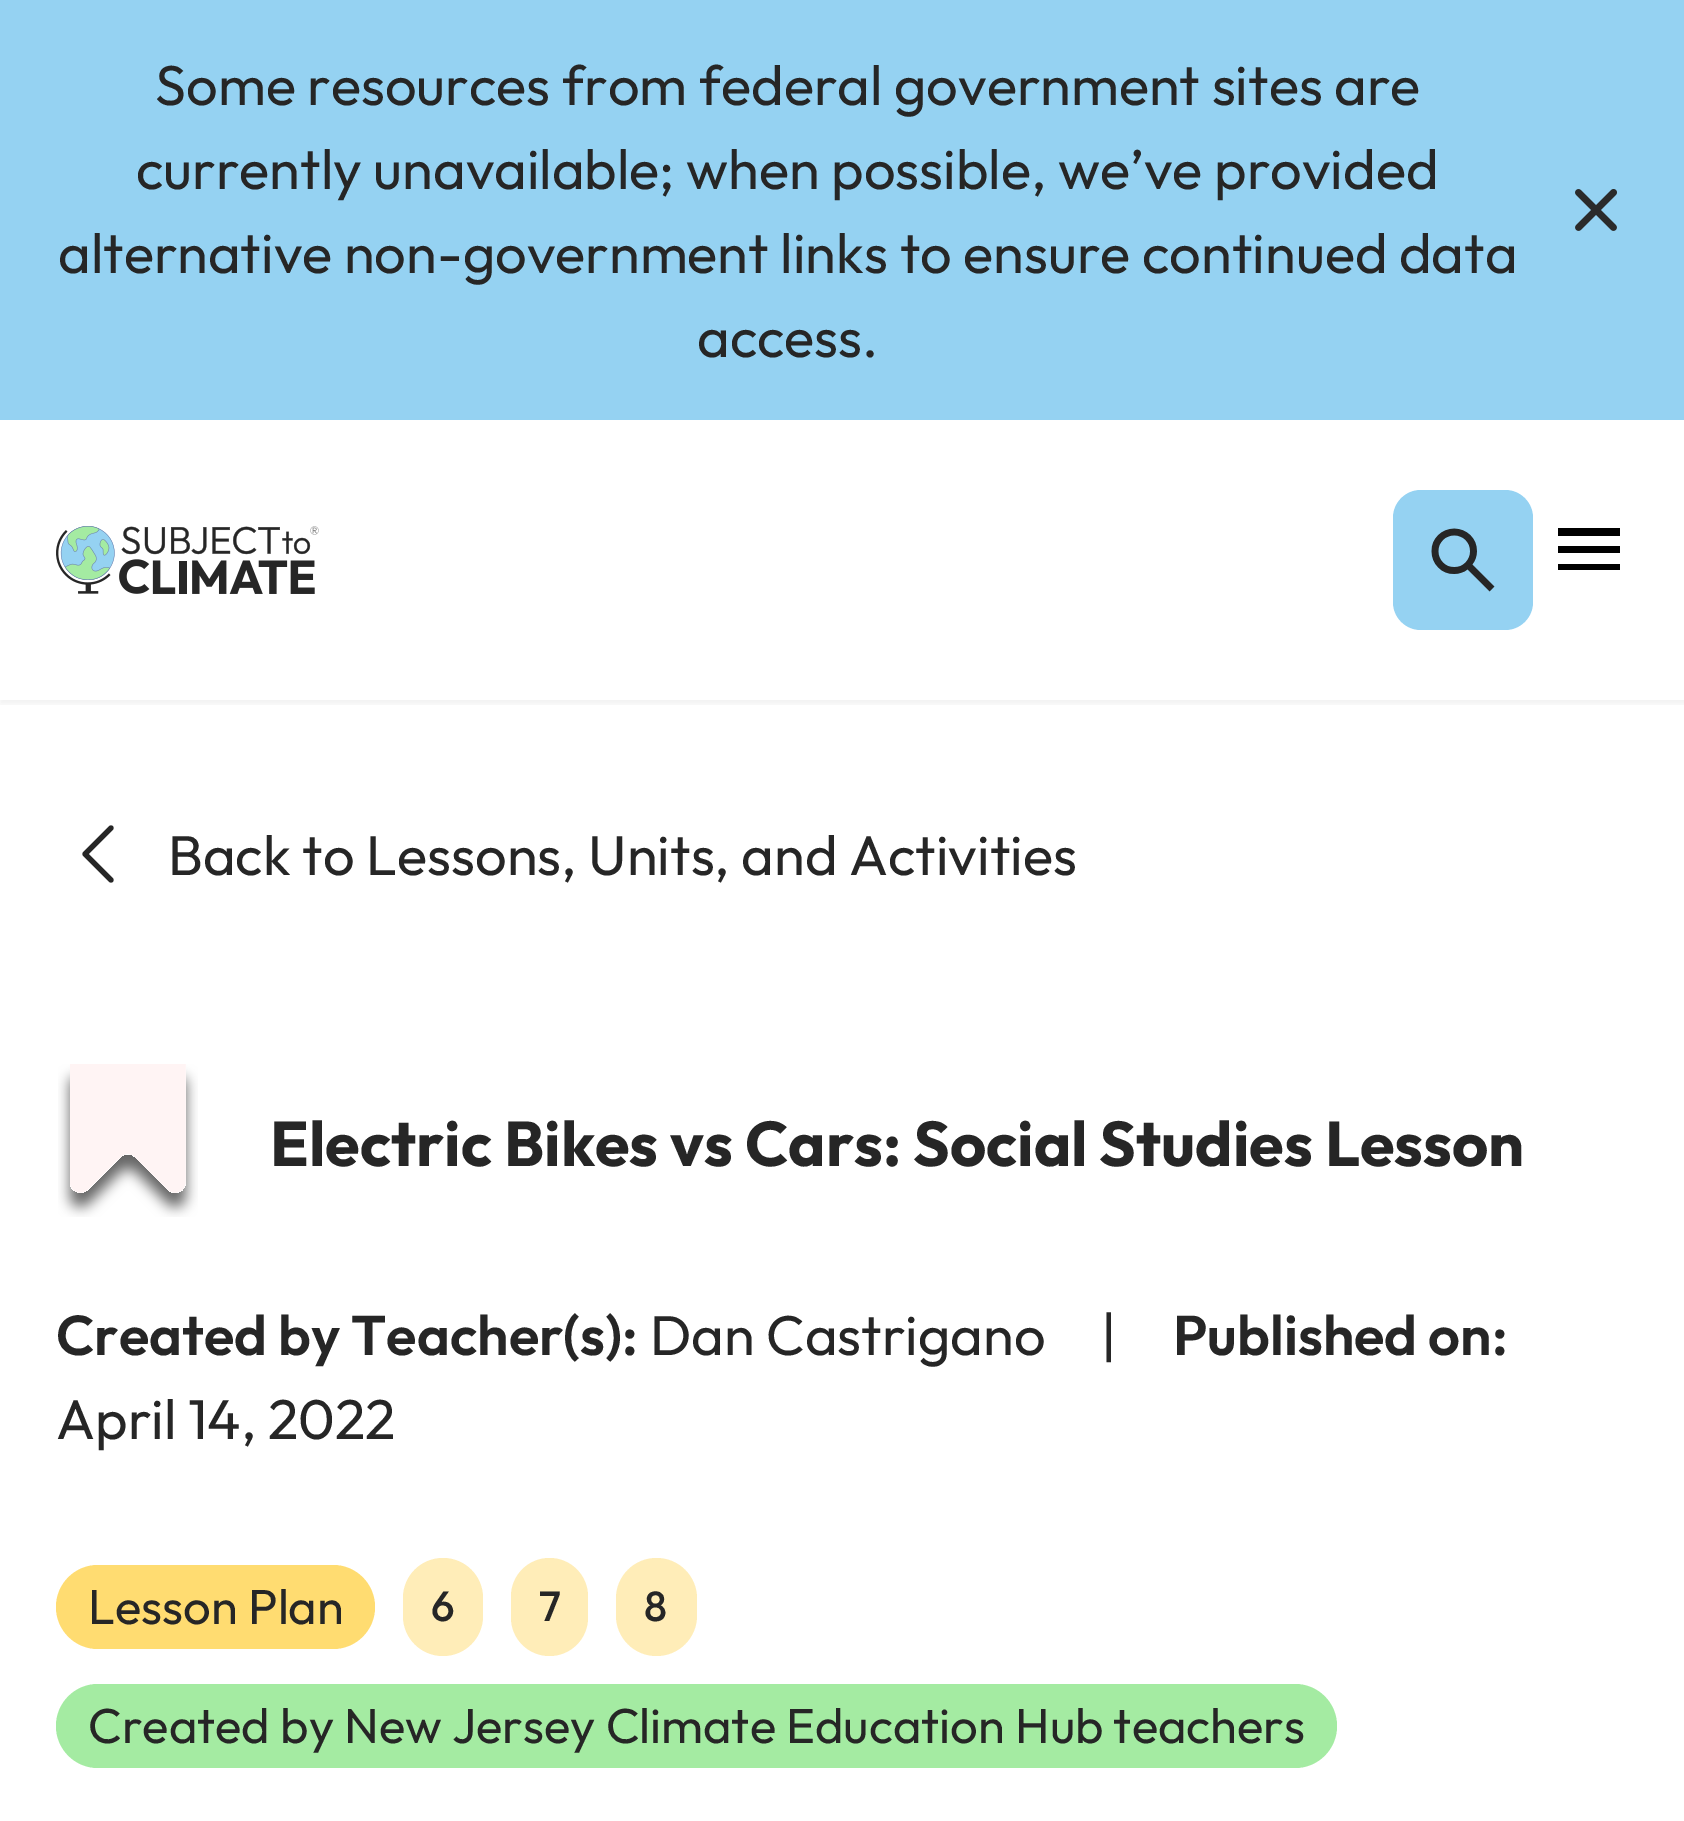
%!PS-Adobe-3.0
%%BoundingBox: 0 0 1684 1821
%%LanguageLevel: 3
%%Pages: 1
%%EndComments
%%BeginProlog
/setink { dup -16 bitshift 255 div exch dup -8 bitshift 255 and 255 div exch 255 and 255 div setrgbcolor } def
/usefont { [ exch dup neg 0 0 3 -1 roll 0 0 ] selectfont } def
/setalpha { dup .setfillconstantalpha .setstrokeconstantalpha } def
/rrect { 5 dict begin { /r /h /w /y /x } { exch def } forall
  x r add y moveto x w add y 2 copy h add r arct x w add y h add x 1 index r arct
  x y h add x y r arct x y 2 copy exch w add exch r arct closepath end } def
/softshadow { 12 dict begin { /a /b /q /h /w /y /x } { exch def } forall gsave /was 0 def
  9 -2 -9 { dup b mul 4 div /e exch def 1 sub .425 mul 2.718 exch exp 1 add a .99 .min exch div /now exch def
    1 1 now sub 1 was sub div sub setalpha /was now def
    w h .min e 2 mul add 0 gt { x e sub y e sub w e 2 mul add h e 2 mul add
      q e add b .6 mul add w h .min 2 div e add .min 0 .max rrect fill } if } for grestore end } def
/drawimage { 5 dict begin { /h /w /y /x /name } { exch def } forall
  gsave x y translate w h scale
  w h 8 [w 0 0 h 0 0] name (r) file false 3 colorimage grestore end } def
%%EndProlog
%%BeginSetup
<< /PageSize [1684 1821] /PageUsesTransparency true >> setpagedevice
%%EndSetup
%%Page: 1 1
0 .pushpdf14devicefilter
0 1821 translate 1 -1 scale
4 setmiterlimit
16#FFFFFF setink
0 0 1684 1821 rectfill
gsave
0 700 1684 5 rectclip
16#000000 setink
0 424 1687 280 0 3.5 0.05 softshadow
grestore
16#95D2F2 setink
0 0 1684 420 rectfill
/Outfit-Regular 56 usefont
16#262626 setink
[
    [(Some resources from federal government sites are) 155 105]
    [(currently unavailable; when possible, we’ve provided) 136 189]
    [(alternative non-government links to ensure continued data) 58 273]
    [(access.) 697 357]
] { aload pop moveto show } forall
(img1.raw) 1575 189 42 42 drawimage
(img2.raw) 56 526 263 68 drawimage
16#95D2F2 setink
1393 490 140 140 28 rrect fill
(img3.raw) 1431 528 64 64 drawimage
16#000000 setink
1558 570 moveto 1558 564 lineto 1620 564 lineto 1620 570 lineto closepath 1558 553 moveto 1558 546 lineto 1620 546 lineto 1620 553 lineto closepath 1558 536 moveto 1558 528 lineto 1620 528 lineto 1620 536 lineto closepath fill
16#262626 setink
5.2 setlinewidth
1 setlinecap
1 setlinejoin
111 880 moveto 85 854 lineto 111 828 lineto stroke
168 875 moveto (Back to Lessons, Units, and Activities) show
(img4.raw) 58 1064 140 153 drawimage
/Outfit-Bold 63 usefont
270 1166 moveto (Electric Bikes vs Cars: Social Studies Lesson) show
/Outfit-SemiBold 56 usefont
56 1355 moveto (Created by Teacher\(s\):) show
/Outfit-Regular 56 usefont
650 1355 moveto (Dan Castrigano) show
1101 1355 moveto (|) show
/Outfit-SemiBold 56 usefont
1173 1355 moveto (Published on:) show
/Outfit-Regular 56 usefont
56 1439 moveto (April 14, 2022) show
16#FFDC71 setink
56 1565 319 84 42 rrect fill
/Outfit-Regular 49 usefont
16#262626 setink
88 1624 moveto (Lesson Plan) show
16#FFEDB8 setink
403 1558 80 98 40 rrect fill
/Outfit-Medium 42 usefont
16#262626 setink
431 1621 moveto (6) show
16#FFEDB8 setink
511 1558 77 98 38.5 rrect fill
16#262626 setink
539 1621 moveto (7) show
16#FFEDB8 setink
616 1558 81 98 40.5 rrect fill
16#262626 setink
644 1621 moveto (8) show
16#A4EBA2 setink
56 1684 1281 84 42 rrect fill
/Outfit-Regular 49 usefont
16#262626 setink
88 1743 moveto (Created by New Jersey Climate Education Hub teachers) show
.poppdf14devicefilter showpage
%%EOF
